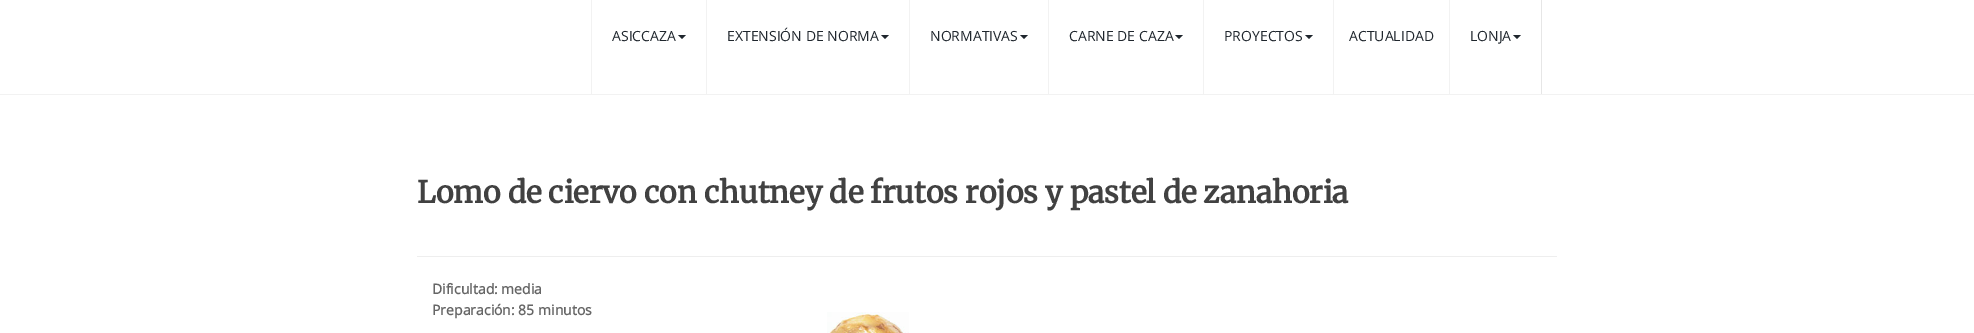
%!PS-Adobe-3.0
%%BoundingBox: 0 0 1974 333
%%LanguageLevel: 3
%%Pages: 1
%%EndComments
%%BeginProlog
/setink { dup -16 bitshift 255 div exch dup -8 bitshift 255 and 255 div exch 255 and 255 div setrgbcolor } def
/usefont { [ exch dup neg 0 0 3 -1 roll 0 0 ] selectfont } def
/drawimage { 5 dict begin { /h /w /y /x /name } { exch def } forall
  gsave x y translate w h scale
  w h 8 [w 0 0 h 0 0] name (r) file false 3 colorimage grestore end } def
%%EndProlog
%%BeginSetup
<< /PageSize [1974 333] >> setpagedevice
%%EndSetup
%%Page: 1 1
0 333 translate 1 -1 scale
4 setmiterlimit
16#FFFFFF setink
0 0 1974 333 rectfill
[
    [0 94 1974 1 16#F2F2F2]
    [1541 0 1 94 16#E6E6E6]
    [591 0 1 94 16#F2F2F2]
] { aload pop setink rectfill } forall
/OpenSans-Regular 14 usefont
16#1F262D setink
612 41 moveto (ASICCAZA) show
678 35 moveto 686 35 lineto 682 39 lineto closepath fill
16#F2F2F2 setink
706 0 1 94 rectfill
16#1F262D setink
727 41 moveto (EXTENSIÓN DE NORMA) show
881 35 moveto 889 35 lineto 885 39 lineto closepath fill
16#F2F2F2 setink
909 0 1 94 rectfill
16#1F262D setink
930 41 moveto (NORMATIVAS) show
1020 35 moveto 1028 35 lineto 1024 39 lineto closepath fill
16#F2F2F2 setink
1048 0 1 94 rectfill
16#1F262D setink
1069 41 moveto (CARNE DE CAZA) show
1175 35 moveto 1183 35 lineto 1179 39 lineto closepath fill
16#F2F2F2 setink
1203 0 1 94 rectfill
16#1F262D setink
1224 41 moveto (PROYECTOS) show
1305 35 moveto 1313 35 lineto 1309 39 lineto closepath fill
16#F2F2F2 setink
1333 0 1 94 rectfill
16#1F262D setink
1349 41 moveto (ACTUALIDAD) show
16#F2F2F2 setink
1449 0 1 94 rectfill
16#1F262D setink
1470 41 moveto (LONJA) show
1513 35 moveto 1521 35 lineto 1517 39 lineto closepath fill
16#EEEEEE setink
417 256 1140 1 rectfill
/Merriweather-Bold 30 usefont
16#414141 setink
417 203 moveto (Lomo de ciervo con chutney de frutos rojos y pastel de zanahoria) show
/OpenSans-Bold 14 usefont
16#666666 setink
432 294 moveto (Dificultad: media) show
432 315 moveto (Preparación: 85 minutos) show
(img1.raw) 827 312 82 21 drawimage
showpage
%%EOF
